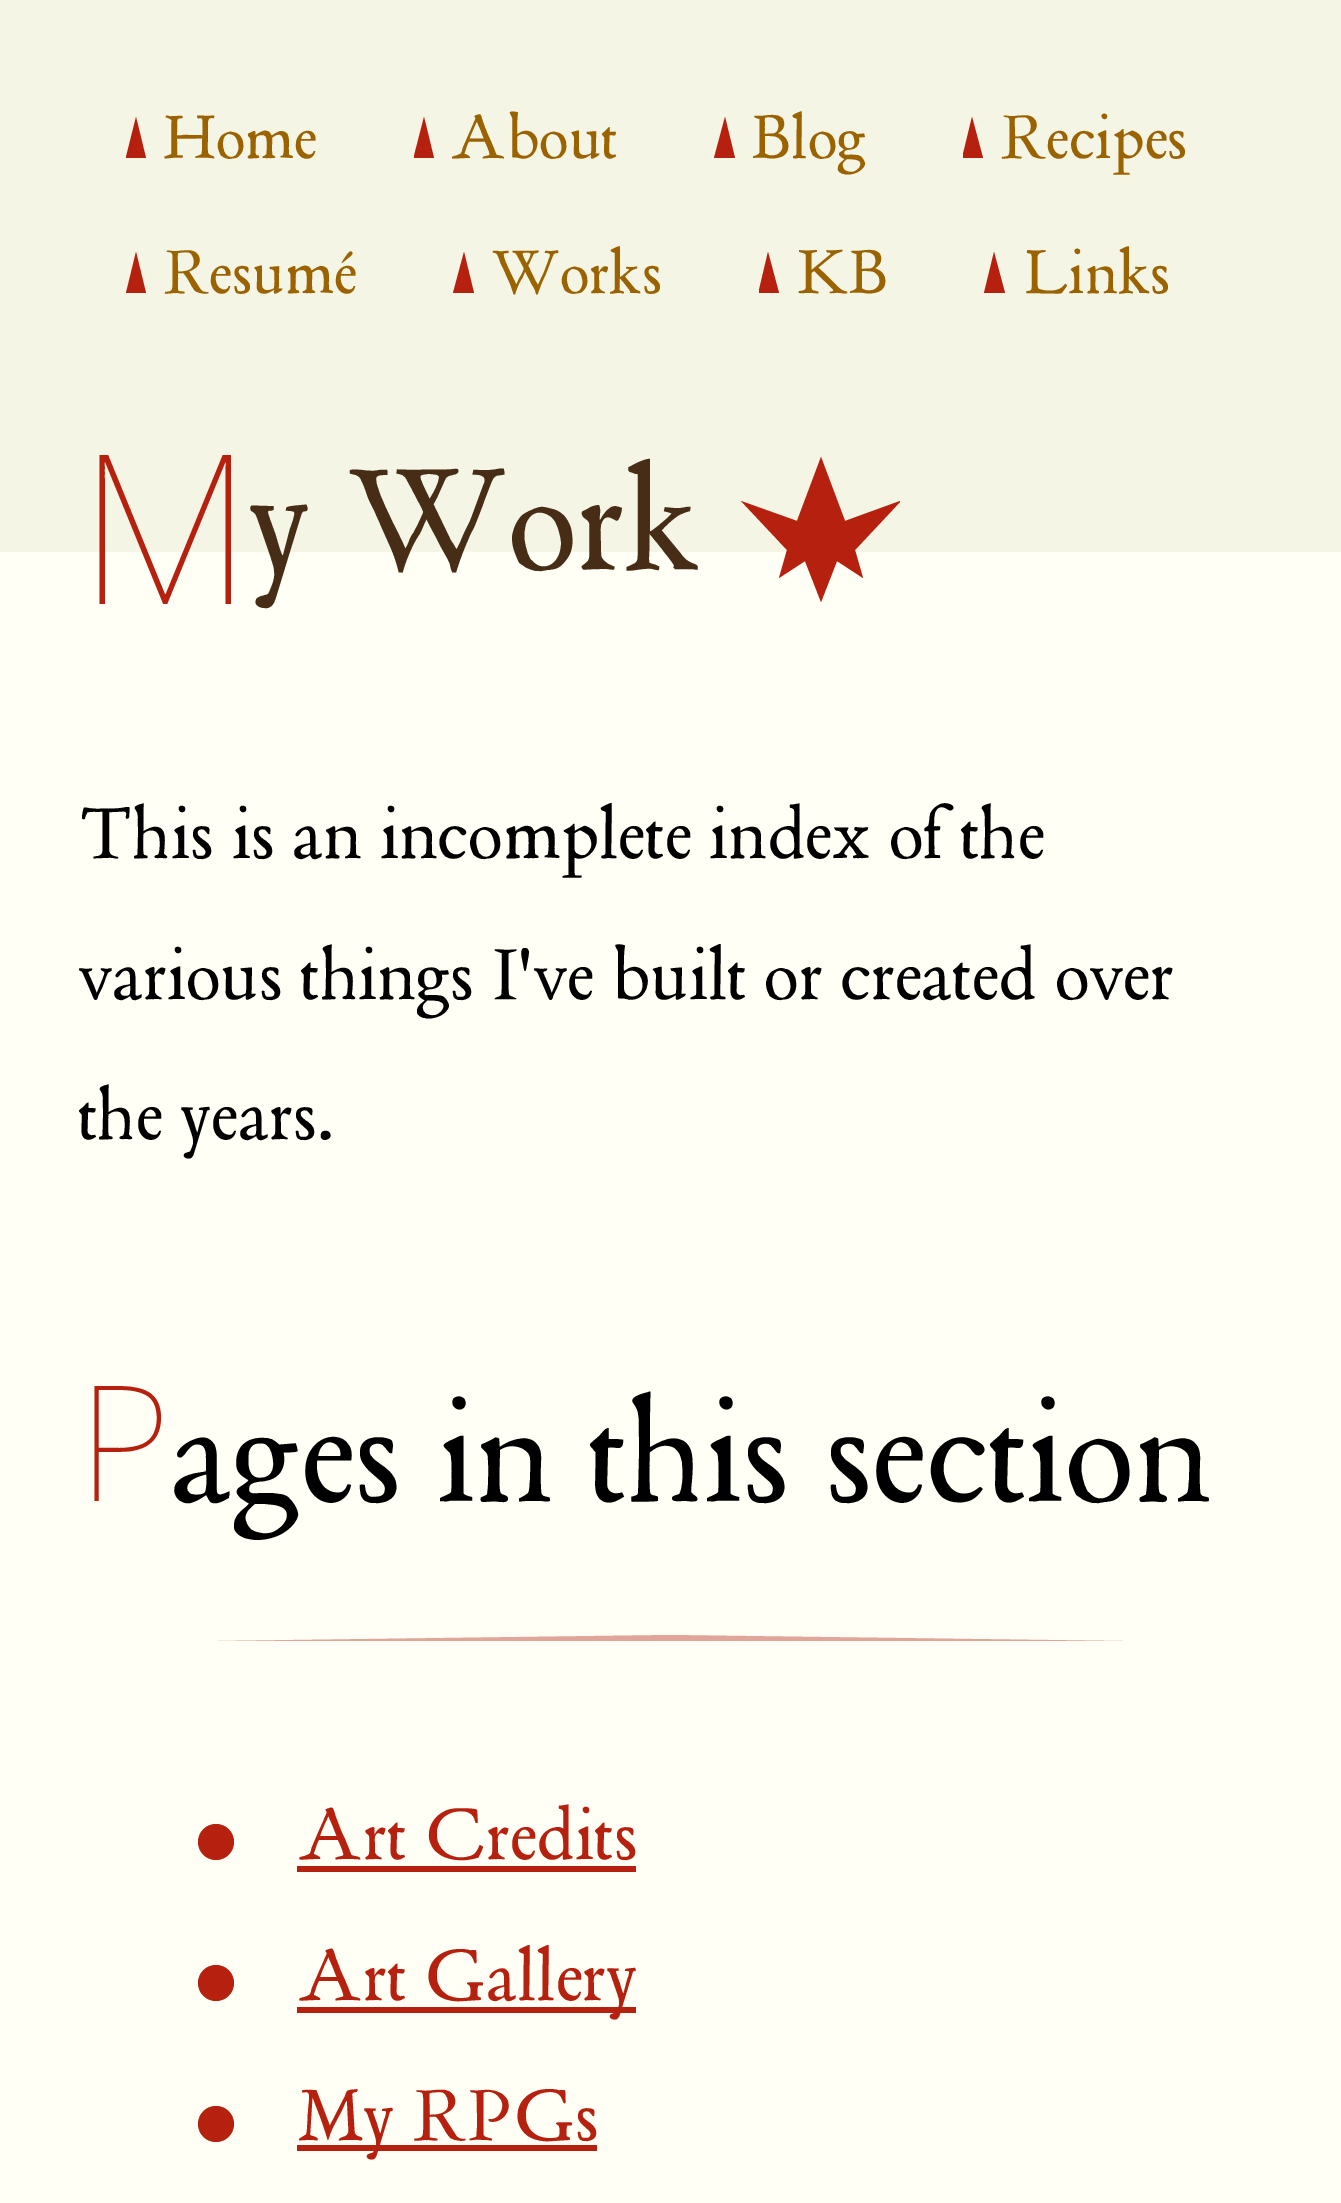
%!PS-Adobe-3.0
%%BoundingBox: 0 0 1341 2203
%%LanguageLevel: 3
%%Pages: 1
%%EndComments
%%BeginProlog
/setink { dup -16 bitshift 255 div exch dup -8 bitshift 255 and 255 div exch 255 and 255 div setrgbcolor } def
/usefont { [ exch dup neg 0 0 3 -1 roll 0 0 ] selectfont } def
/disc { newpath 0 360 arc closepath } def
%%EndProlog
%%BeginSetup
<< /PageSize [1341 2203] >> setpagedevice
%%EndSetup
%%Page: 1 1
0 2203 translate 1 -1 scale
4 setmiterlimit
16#FFFFF5 setink
0 0 1341 2203 rectfill
16#F5F5E6 setink
0 0 1341 552 rectfill
16#B5210E setink
126 157 moveto 136 117 lineto 146 158 lineto 126 158 lineto closepath fill
/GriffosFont-Medium 68.5 usefont
16#9B6300 setink
163 158 moveto (Home) show
16#B5210E setink
414 156 moveto 424 117 lineto 434 158 lineto 414 158 lineto closepath fill
16#9B6300 setink
451 158 moveto (About) show
16#B5210E setink
725 117 moveto 735 158 lineto 714 158 lineto closepath fill
16#9B6300 setink
752 158 moveto (Blog) show
16#B5210E setink
963 154 moveto 972 117 lineto 983 158 lineto 963 158 lineto closepath fill
16#9B6300 setink
1000 158 moveto (Recipes) show
16#B5210E setink
136 252 moveto 146 293 lineto 126 293 lineto closepath fill
16#9B6300 setink
163 293 moveto (Resumé) show
16#B5210E setink
464 252 moveto 453 293 lineto 474 293 lineto closepath fill
16#9B6300 setink
491 293 moveto (Works) show
16#B5210E setink
768 252 moveto 779 293 lineto 759 293 lineto 759 290 lineto closepath fill
16#9B6300 setink
796 293 moveto (KB) show
16#B5210E setink
994 252 moveto 984 293 lineto 1005 293 lineto closepath fill
16#9B6300 setink
1022 293 moveto (Links) show
/NotoSans-Thin 209 usefont
16#B5210E setink
78 604 moveto (M) show
/GriffosFont-Medium 161 usefont
16#472C16 setink
248 569 moveto (y Work) show
16#B5210E setink
741 501 moveto 797 521 lineto 821 457 lineto 845 521 lineto 900 501 lineto 900 502 lineto 855 550 lineto 863 578 lineto 837 561 lineto 821 602 lineto 805 561 lineto 779 578 lineto 787 550 lineto closepath fill
/GriffosFont-Medium 80.5 usefont
16#000000 setink
[
    [(This is an incomplete index of the) 78 858]
    [(various things I've built or created over) 78 999]
    [(the years.) 78 1139]
] { aload pop moveto show } forall
/NotoSans-Thin 161 usefont
16#B5210E setink
78 1501 moveto (P) show
/GriffosFont-Medium 161 usefont
16#000000 setink
170 1501 moveto (ages in this section) show
16#E1A699 setink
670 1635 moveto 1123 1641 lineto 218 1641 lineto closepath fill
16#B5210E setink
216 1842 18 disc fill
/GriffosFont-Medium 80.5 usefont
298 1859 moveto (Art Credits) show
297 1866 339 6 rectfill
216 1983 18 disc fill
297 2007 339 6 rectfill
298 2000 moveto (Art Gallery) show
216 2124 18 disc fill
297 2145 300 6 rectfill
298 2140 moveto (My RPGs) show
showpage
%%EOF
